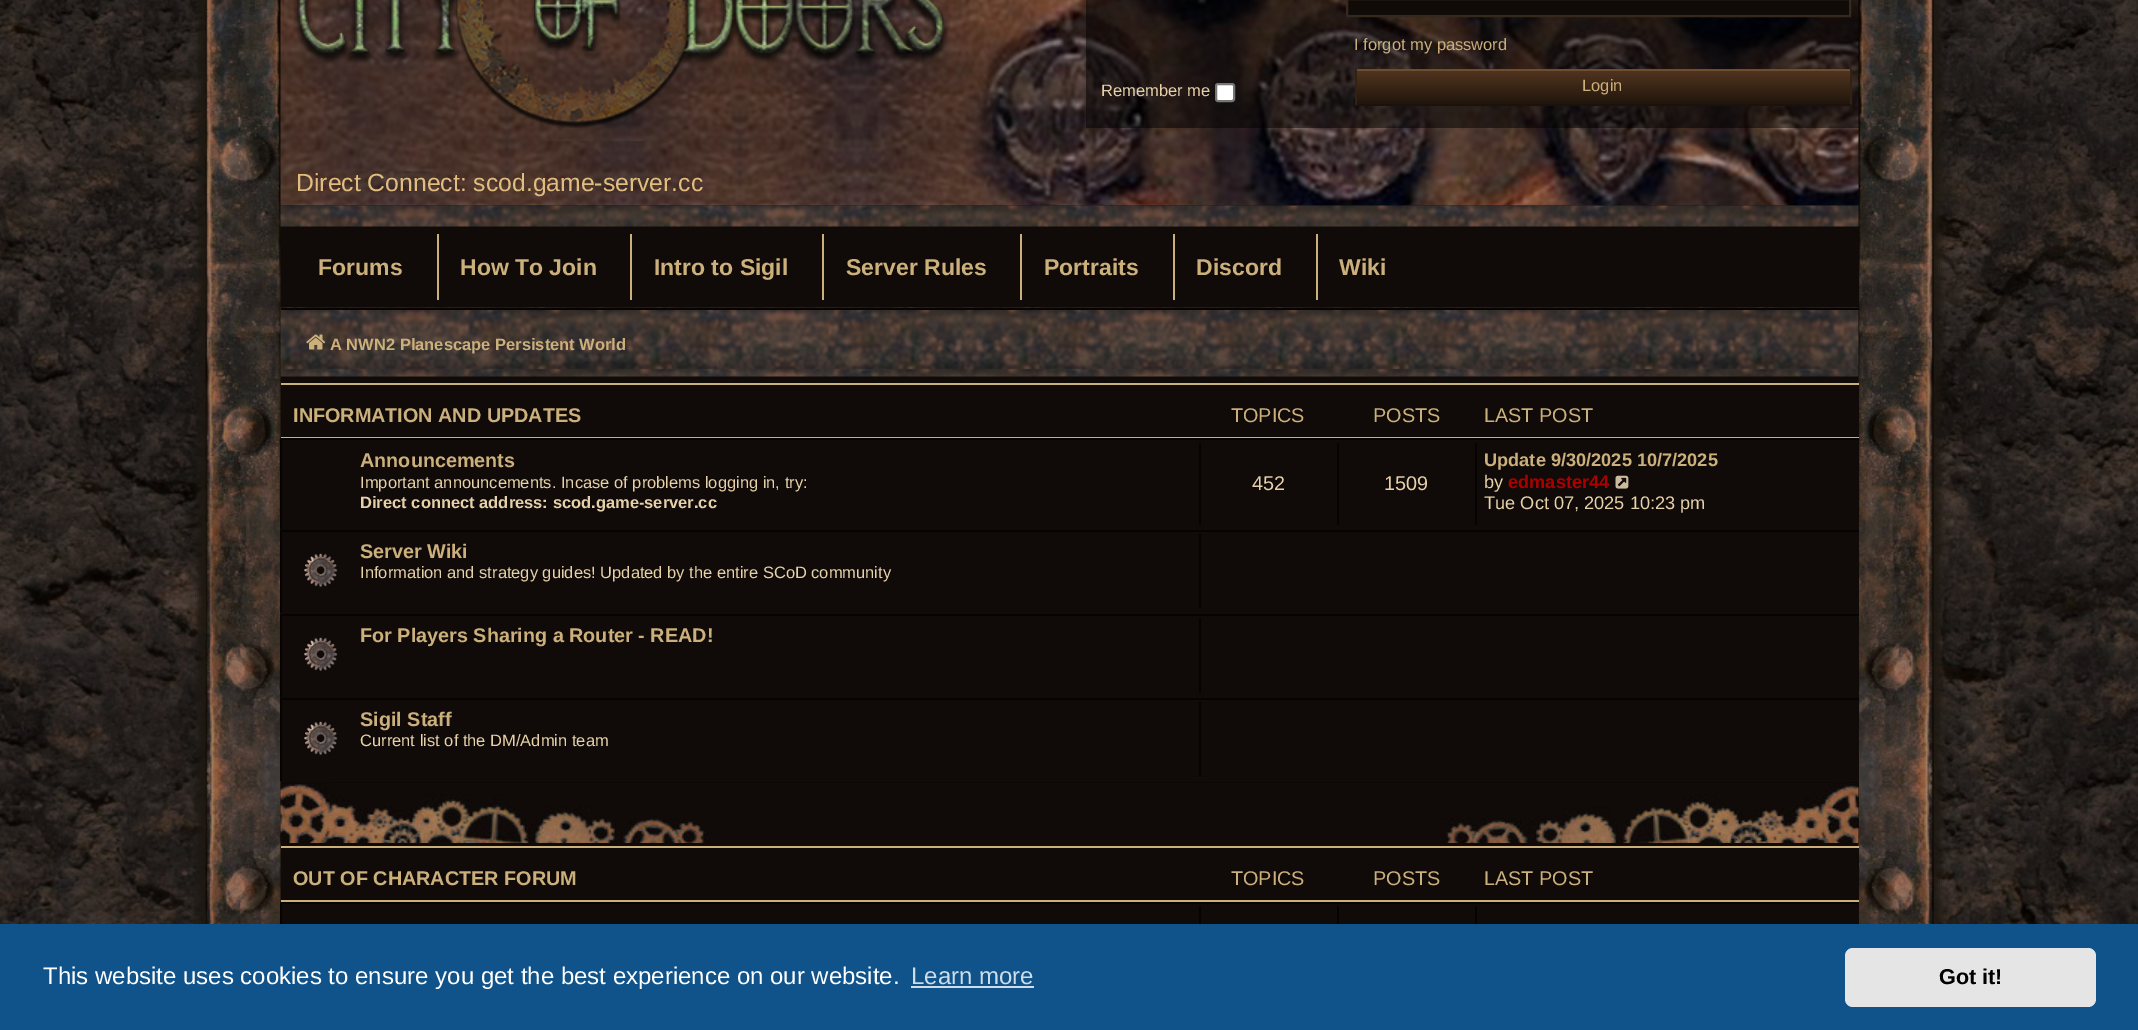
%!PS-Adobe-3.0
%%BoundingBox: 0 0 2138 1030
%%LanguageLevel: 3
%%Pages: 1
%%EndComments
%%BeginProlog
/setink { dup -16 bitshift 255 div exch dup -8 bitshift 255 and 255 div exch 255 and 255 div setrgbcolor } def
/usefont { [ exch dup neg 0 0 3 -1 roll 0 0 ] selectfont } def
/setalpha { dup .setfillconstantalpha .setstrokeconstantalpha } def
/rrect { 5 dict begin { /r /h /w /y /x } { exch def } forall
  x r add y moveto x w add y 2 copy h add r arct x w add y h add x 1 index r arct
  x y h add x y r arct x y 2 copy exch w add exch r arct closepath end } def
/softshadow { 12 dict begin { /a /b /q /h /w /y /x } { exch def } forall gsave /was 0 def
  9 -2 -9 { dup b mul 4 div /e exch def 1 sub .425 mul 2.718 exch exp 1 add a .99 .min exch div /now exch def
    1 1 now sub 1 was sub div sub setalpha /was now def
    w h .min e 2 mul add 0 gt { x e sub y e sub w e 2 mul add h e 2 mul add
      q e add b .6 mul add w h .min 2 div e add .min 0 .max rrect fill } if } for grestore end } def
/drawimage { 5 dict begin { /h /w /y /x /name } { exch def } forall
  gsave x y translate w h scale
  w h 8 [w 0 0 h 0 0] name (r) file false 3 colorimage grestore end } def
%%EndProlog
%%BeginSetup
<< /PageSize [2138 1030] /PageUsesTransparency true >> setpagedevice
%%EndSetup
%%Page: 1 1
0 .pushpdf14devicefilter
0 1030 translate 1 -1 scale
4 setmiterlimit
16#FFFFFF setink
0 0 2138 1030 rectfill
(img1.raw) 0 0 2138 924 drawimage
16#100B08 setink
280 0 1654 924 rectfill
gsave
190 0 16 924 rectclip
16#1C1710 setink
198 -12 1728 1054 0 4 1 softshadow
grestore
(img2.raw) 205 0 76 924 drawimage
gsave
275 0 moveto 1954 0 lineto 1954 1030 lineto 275 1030 lineto closepath 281 -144 moveto 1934 -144 lineto 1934 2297 lineto 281 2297 lineto closepath eoclip newpath
16#1C1710 setink
288 -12 1653 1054 0 4 0.9 softshadow
grestore
(img3.raw) 1858 0 76 924 drawimage
(img4.raw) 280 0 1579 206 drawimage
0.5 setalpha
16#000000 setink
1086 0 773 128 rectfill
1 setalpha
16#110B08 setink
1347 -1 moveto 1850 -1 lineto 1850 16 lineto 1347 16 lineto closepath gsave fill grestore
16#35281D setink
2 setlinewidth
stroke
/LiberationSans-Regular 16.5 usefont
16#CCB07C setink
1354 50 moveto (I forgot my password) show
16#E7D1A9 setink
1101 96 moveto (Remember me) show
16#FFFFFF setink
1216 84 18 17 2 rrect gsave fill grestore
16#767676 setink
stroke
gsave 1357 71 moveto 1850 71 lineto 1850 104 lineto 1357 104 lineto closepath clip newpath
<< /ShadingType 2 /ColorSpace /DeviceRGB /Coords [1603 70 1603 104] /Extend [true true] /Function << /FunctionType 2 /Domain [0 1] /C0 [0.318 0.208 0.122] /C1 [0.129 0.082 0.047] /N 1 >> >> shfill grestore
[
    [1355 69 496 2 16#6F4D31]
    [1850 69 2 36 16#332214]
    [1355 104 496 2 16#1B120A]
    [1355 69 2 36 16#332214]
] { aload pop setink rectfill } forall
16#CCB07C setink
1582 91 moveto (Login) show
(img5.raw) 293 0 656 128 drawimage
/LiberationSans-Regular 24.75 usefont
16#E1BE80 setink
296 191 moveto (Direct Connect: scod.game-server.cc) show
(img6.raw) 280 205 1579 22 drawimage
16#100B08 setink
1858 227 1 150 rectfill
/LiberationSans-Bold 23 usefont
16#CCB07C setink
318 275 moveto (Forums) show
437 234 2 66 rectfill
460 275 moveto (How To Join) show
630 234 2 66 rectfill
654 275 moveto (Intro to Sigil) show
822 234 2 66 rectfill
846 275 moveto (Server Rules) show
1020 234 2 66 rectfill
1044 275 moveto (Portraits) show
1173 234 2 66 rectfill
1196 275 moveto (Discord) show
1316 234 2 66 rectfill
1339 275 moveto (Wiki) show
(img7.raw) 280 307 1579 70 drawimage
16#080401 setink
281 308 1578 2 rectfill
(img8.raw) 306 334 20 16 drawimage
/LiberationSans-Bold 16.5 usefont
16#CCB07C setink
330 350 moveto (A NWN2 Planescape Persistent World) show
[
    [1858 385 1 52 16#100B08]
    [281 383 1578 2 16#CCB07C]
    [281 437 1578 1 16#CCB07C]
] { aload pop setink rectfill } forall
/LiberationSans-Bold 19.8 usefont
293 422 moveto (INFORMATION AND UPDATES) show
/LiberationSans-Regular 19.8 usefont
[
    [(TOPICS) 1231 422]
    [(POSTS) 1373 422]
    [(LAST POST) 1484 422]
] { aload pop moveto show } forall
16#100B08 setink
1858 440 1 403 rectfill
16#050403 setink
281 438 1578 2 rectfill
280 530 moveto 280 438 lineto 282 440 lineto 282 528 lineto closepath fill
/LiberationSans-Bold 19.8 usefont
16#CCB07C setink
360 467 moveto (Announcements) show
/LiberationSans-Regular 16.5 usefont
16#E7D1A9 setink
360 488 moveto (Important announcements. Incase of problems logging in, try:) show
/LiberationSans-Bold 16.5 usefont
360 508 moveto (Direct connect address: scod.game-server.cc) show
16#050403 setink
1199 443 2 82 rectfill
/LiberationSans-Regular 19.8 usefont
16#E7D1A9 setink
1252 490 moveto (452) show
16#050403 setink
1337 443 2 82 rectfill
16#E7D1A9 setink
1384 490 moveto (1509) show
16#050403 setink
1475 443 2 82 rectfill
/LiberationSans-Bold 18.2 usefont
16#CCB07C setink
1484 466 moveto (Update 9/30/2025 10/7/2025) show
/LiberationSans-Regular 18.2 usefont
16#E7D1A9 setink
1484 488 moveto (by) show
/LiberationSans-Bold 18.2 usefont
16#AA0000 setink
1508 488 moveto (edmaster44) show
(img9.raw) 1615 475 14 14 drawimage
/LiberationSans-Regular 18.2 usefont
16#E7D1A9 setink
1484 509 moveto (Tue Oct 07, 2025 10:23 pm) show
16#050403 setink
281 530 1578 2 rectfill
280 614 moveto 280 530 lineto 282 531 lineto 282 612 lineto closepath fill
(img10.raw) 304 553 34 34 drawimage
/LiberationSans-Bold 19.8 usefont
16#CCB07C setink
360 558 moveto (Server Wiki) show
/LiberationSans-Regular 16.5 usefont
16#E7D1A9 setink
360 578 moveto (Information and strategy guides! Updated by the entire SCoD community) show
16#050403 setink
1199 534 2 75 rectfill
281 614 1578 2 rectfill
280 698 moveto 280 614 lineto 282 615 lineto 282 696 lineto closepath fill
(img10.raw) 304 637 34 34 drawimage
/LiberationSans-Bold 19.8 usefont
16#CCB07C setink
360 642 moveto (For Players Sharing a Router - READ!) show
16#050403 setink
1199 618 2 75 rectfill
281 698 1578 2 rectfill
280 782 moveto 280 698 lineto 282 699 lineto 282 780 lineto closepath fill
(img10.raw) 304 721 34 34 drawimage
16#CCB07C setink
360 726 moveto (Sigil Staff) show
/LiberationSans-Regular 16.5 usefont
16#E7D1A9 setink
360 746 moveto (Current list of the DM/Admin team) show
16#050403 setink
1199 702 2 75 rectfill
16#0E0805 setink
281 782 1578 2 rectfill
(img11.raw) 280 783 1579 60 drawimage
[
    [1858 848 1 52 16#100B08]
    [281 846 1578 2 16#CCB07C]
    [281 900 1578 2 16#CCB07C]
] { aload pop setink rectfill } forall
/LiberationSans-Bold 19.8 usefont
293 885 moveto (OUT OF CHARACTER FORUM) show
/LiberationSans-Regular 19.8 usefont
[
    [(TOPICS) 1231 885]
    [(POSTS) 1373 885]
    [(LAST POST) 1484 885]
] { aload pop moveto show } forall
16#100B08 setink
1858 904 1 20 rectfill
16#050403 setink
281 902 1578 2 rectfill
280 992 moveto 280 902 lineto 282 903 lineto 282 990 lineto closepath fill
[
    [1199 906 2 18 16#050403]
    [1337 906 2 18 16#050403]
    [1475 906 2 18 16#050403]
    [0 924 2138 106 16#0F538A]
] { aload pop setink rectfill } forall
/LiberationSans-Regular 24 usefont
16#FFFFFF setink
43 984 moveto (This website uses cookies to ensure you get the best experience on our website.) show
16#CFDDE8 setink
911 984 moveto (Learn more) show
911 986 123 2 rectfill
16#E5E5E5 setink
1845 948 251 59 8 rrect fill
/LiberationSans-Bold 21.5 usefont
16#000000 setink
1939 984 moveto (Got it!) show
.poppdf14devicefilter showpage
%%EOF
